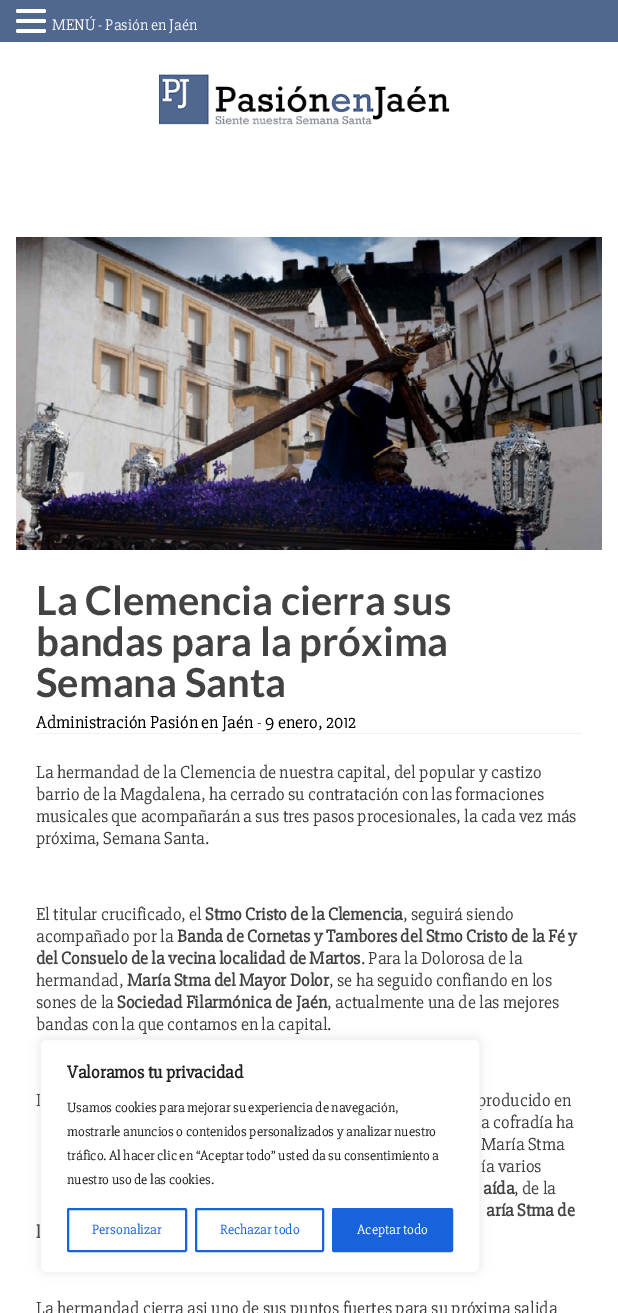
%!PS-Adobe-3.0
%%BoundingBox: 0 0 618 1313
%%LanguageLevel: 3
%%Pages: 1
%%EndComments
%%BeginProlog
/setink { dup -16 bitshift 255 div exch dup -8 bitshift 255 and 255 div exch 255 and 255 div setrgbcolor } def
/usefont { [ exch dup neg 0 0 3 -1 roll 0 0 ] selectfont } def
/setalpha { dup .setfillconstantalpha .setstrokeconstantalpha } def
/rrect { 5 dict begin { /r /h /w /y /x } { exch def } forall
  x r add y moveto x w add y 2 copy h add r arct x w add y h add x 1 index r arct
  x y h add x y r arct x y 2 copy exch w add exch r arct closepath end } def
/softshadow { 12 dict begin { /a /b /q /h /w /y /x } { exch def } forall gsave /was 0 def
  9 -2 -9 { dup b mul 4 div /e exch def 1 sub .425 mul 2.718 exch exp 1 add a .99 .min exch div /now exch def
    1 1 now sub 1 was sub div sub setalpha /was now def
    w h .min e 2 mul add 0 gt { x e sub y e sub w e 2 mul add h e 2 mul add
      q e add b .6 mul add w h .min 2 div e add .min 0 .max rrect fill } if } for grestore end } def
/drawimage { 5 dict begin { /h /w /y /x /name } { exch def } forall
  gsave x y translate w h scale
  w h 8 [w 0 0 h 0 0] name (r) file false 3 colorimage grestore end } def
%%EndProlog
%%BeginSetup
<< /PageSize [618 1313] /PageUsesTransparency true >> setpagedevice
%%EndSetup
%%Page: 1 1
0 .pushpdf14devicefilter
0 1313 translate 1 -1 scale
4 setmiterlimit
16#FFFFFF setink
0 0 618 1313 rectfill
16#506790 setink
0 0 618 42 rectfill
16#FFFFFF setink
16 9 30 4 2 rrect fill
16 19 30 4 2 rrect fill
16 29 30 4 2 rrect fill
/Slabo27px-Regular 16 usefont
16#F2F2F2 setink
52 30 moveto (MENÚ - Pasión en Jaén) show
(img1.raw) 159 74 291 51 drawimage
(img2.raw) 16 237 586 313 drawimage
36 733 546 1 rectfill
/Lato-Bold 40 usefont
16#424242 setink
[
    [(La Clemencia cierra sus) 36 615]
    [(bandas para la próxima) 36 656]
    [(Semana Santa) 36 697]
] { aload pop moveto show } forall
/Slabo27px-Regular 18 usefont
16#000000 setink
36 728 moveto (Administración Pasión en Jaén) show
16#424242 setink
257 728 moveto (-) show
16#000000 setink
265 728 moveto (9 enero, 2012) show
16#424242 setink
[
    [(La hermandad de la Clemencia de nuestra capital, del popular y castizo) 36 778]
    [(barrio de la Magdalena, ha cerrado su contratación con las formaciones) 36 800]
    [(musicales que acompañarán a sus tres pasos procesionales, la cada vez más) 36 822]
    [(próxima, Semana Santa.) 36 844]
    [(El titular crucificado, el) 36 920]
] { aload pop moveto show } forall
/Slabo27px-Bold 18 usefont
205 920 moveto (Stmo Cristo de la Clemencia) show
/Slabo27px-Regular 18 usefont
403 920 moveto (, seguirá siendo) show
36 942 moveto (acompañado por la) show
/Slabo27px-Bold 18 usefont
177 942 moveto (Banda de Cornetas y Tambores del Stmo Cristo de la Fé y) show
36 964 moveto (del Consuelo de la vecina localidad de Martos) show
/Slabo27px-Regular 18 usefont
361 964 moveto (. Para la Dolorosa de la) show
36 986 moveto (hermandad,) show
/Slabo27px-Bold 18 usefont
127 986 moveto (María Stma del Mayor Dolor) show
/Slabo27px-Regular 18 usefont
329 986 moveto (, se ha seguido confiando en los) show
36 1008 moveto (sones de la) show
/Slabo27px-Bold 18 usefont
117 1008 moveto (Sociedad Filarmónica de Jaén) show
/Slabo27px-Regular 18 usefont
[
    [(, actualmente una de las mejores) 327 1008]
    [(bandas con la que contamos en la capital.) 36 1030]
    [(L) 36 1106]
    [(producido en) 477 1106]
    [(a cofradía ha) 481 1128]
    [(María Stma) 481 1150]
    [(ía varios) 481 1172]
] { aload pop moveto show } forall
/Slabo27px-Bold 18 usefont
483 1194 moveto (aída) show
/Slabo27px-Regular 18 usefont
514 1194 moveto (, de la) show
/Slabo27px-Bold 18 usefont
486 1216 moveto (aría Stma de) show
36 1238 moveto (l) show
/Slabo27px-Regular 18 usefont
36 1314 moveto (La hermandad cierra asi uno de sus puntos fuertes para su próxima salida) show
16#ACABAB setink
40 1038 440 234 6 5 0.3 softshadow
16#FFFFFF setink
40.5 1039.5 439 233 5.5 rrect gsave fill grestore
16#F4F4F4 setink
stroke
/Slabo27px-Bold 18 usefont
16#212121 setink
67 1078 moveto (Valoramos tu privacidad) show
/Slabo27px-Regular 14 usefont
[
    [(Usamos cookies para mejorar su experiencia de navegación,) 67 1112]
    [(mostrarle anuncios o contenidos personalizados y analizar nuestro) 67 1136]
    [(tráfico. Al hacer clic en “Aceptar todo” usted da su consentimiento a) 67 1160]
    [(nuestro uso de las cookies.) 67 1184]
] { aload pop moveto show } forall
16#1863DC setink
2 setlinewidth
68 1209 118 42 1 rrect stroke
92 1234 moveto (Personalizar) show
196 1209 127 42 1 rrect stroke
220 1234 moveto (Rechazar todo) show
333 1209 119 42 1 rrect gsave fill grestore
stroke
16#FFFFFF setink
357 1234 moveto (Aceptar todo) show
.poppdf14devicefilter showpage
%%EOF
